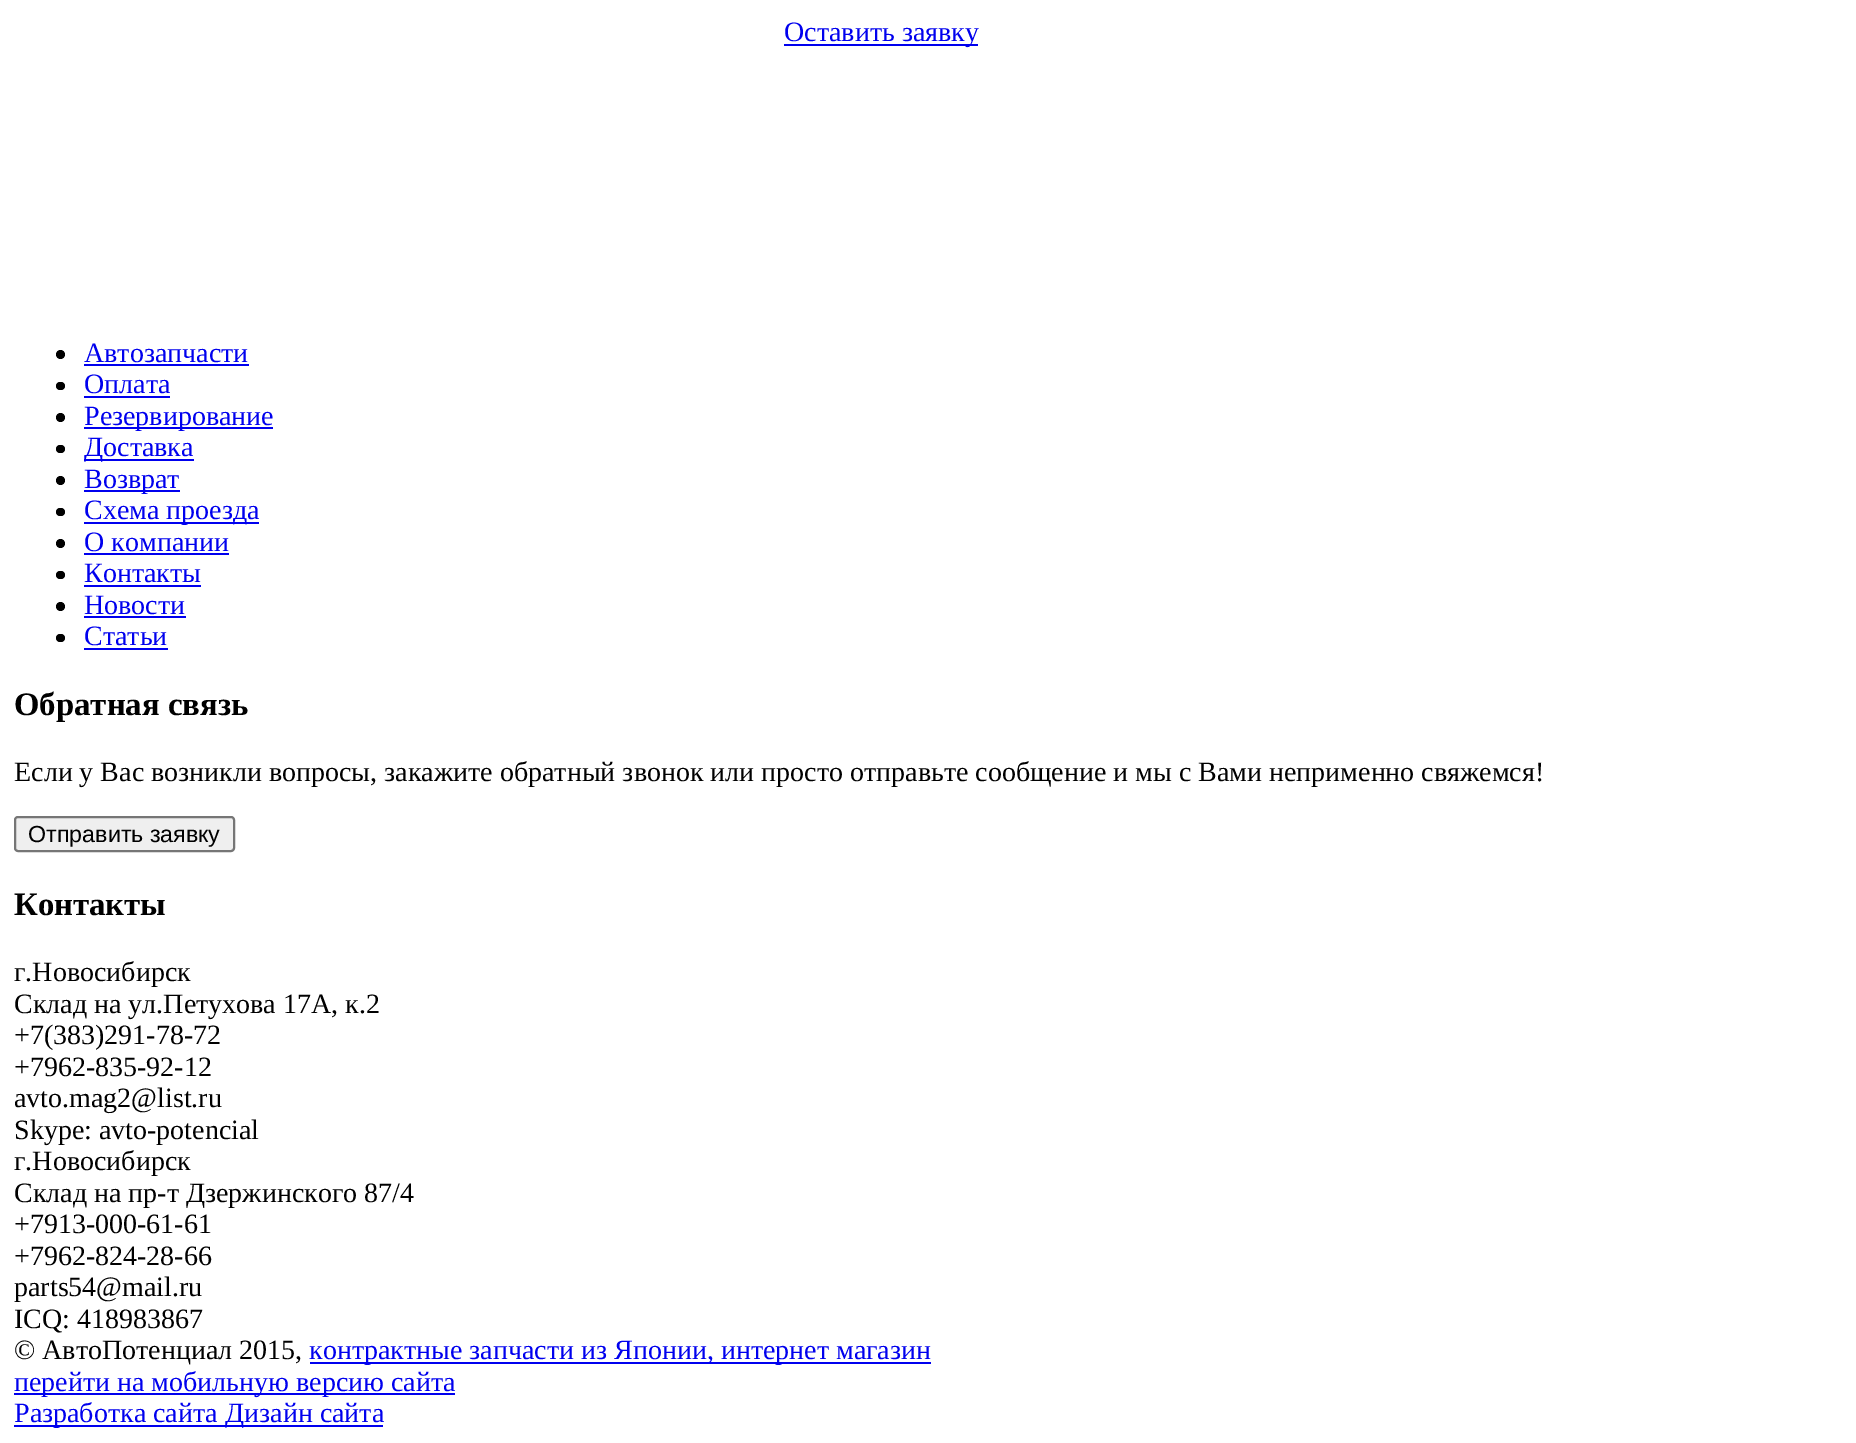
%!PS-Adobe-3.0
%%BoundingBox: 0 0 1856 1443
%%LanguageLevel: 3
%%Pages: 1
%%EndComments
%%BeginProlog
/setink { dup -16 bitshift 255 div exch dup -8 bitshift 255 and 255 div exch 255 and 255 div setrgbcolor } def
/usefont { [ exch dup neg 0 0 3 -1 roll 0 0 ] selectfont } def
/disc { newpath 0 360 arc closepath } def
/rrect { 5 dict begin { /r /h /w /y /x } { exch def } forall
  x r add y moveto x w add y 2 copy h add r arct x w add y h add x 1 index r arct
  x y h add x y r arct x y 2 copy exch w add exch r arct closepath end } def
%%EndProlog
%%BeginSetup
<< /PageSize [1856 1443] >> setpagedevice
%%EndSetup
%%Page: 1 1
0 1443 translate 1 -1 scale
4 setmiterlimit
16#FFFFFF setink
0 0 1856 1443 rectfill
16#0000EE setink
784 44 194 2 rectfill
/LiberationSerif-Regular 28 usefont
784 41 moveto (Оставить заявку) show
16#000000 setink
60.5 354.5 4.5 disc fill
16#0000EE setink
84 362 moveto (Автозапчасти) show
84 364 165 2 rectfill
16#000000 setink
56 382 9 8 4 rrect fill
16#0000EE setink
84 393 moveto (Оплата) show
84 396 86 2 rectfill
16#000000 setink
60.5 417.5 4.5 disc fill
16#0000EE setink
84 427 189 2 rectfill
84 425 moveto (Резервирование) show
16#000000 setink
56 445 9 8 4 rrect fill
16#0000EE setink
84 459 110 2 rectfill
84 456 moveto (Доставка) show
16#000000 setink
60.5 480.5 4.5 disc fill
16#0000EE setink
84 490 96 2 rectfill
84 488 moveto (Возврат) show
16#000000 setink
56 508 9 8 4 rrect fill
16#0000EE setink
84 522 175 2 rectfill
84 519 moveto (Схема проезда) show
16#000000 setink
60.5 543.5 4.5 disc fill
16#0000EE setink
84 551 moveto (О компании) show
84 553 145 2 rectfill
16#000000 setink
56 571 9 8 4 rrect fill
16#0000EE setink
84 582 moveto (Контакты) show
84 585 117 2 rectfill
16#000000 setink
60.5 606.5 4.5 disc fill
16#0000EE setink
84 614 moveto (Новости) show
84 616 102 2 rectfill
16#000000 setink
56 634 9 8 4 rrect fill
16#0000EE setink
84 645 moveto (Статьи) show
84 648 84 2 rectfill
/LiberationSerif-Bold 32.75 usefont
16#000000 setink
14 715 moveto (Обратная связь) show
/LiberationSerif-Regular 28 usefont
14 781 moveto (Если у Вас возникли вопросы, закажите обратный звонок или просто отправьте сообщение и мы с Вами неприменно свяжемся!) show
16#EFEFEF setink
15 817 219 34 3 rrect gsave fill grestore
16#767676 setink
2 setlinewidth
stroke
/LiberationSans-Regular 23.25 usefont
16#000000 setink
28 842 moveto (Отправить заявку) show
/LiberationSerif-Bold 32.75 usefont
14 915 moveto (Контакты) show
/LiberationSerif-Regular 28 usefont
[
    [(г.Новосибирск) 14 981]
    [(Склад на ул.Петухова 17А, к.2) 14 1013]
    [(+7\(383\)291-78-72) 14 1044]
    [(+7962-835-92-12) 14 1076]
    [(avto.mag2@list.ru) 14 1107]
    [(Skype: avto-potencial) 14 1139]
    [(г.Новосибирск) 14 1170]
    [(Склад на пр-т Дзержинского 87/4) 14 1202]
    [(+7913-000-61-61) 14 1233]
    [(+7962-824-28-66) 14 1265]
    [(parts54@mail.ru) 14 1296]
    [(ICQ: 418983867) 14 1328]
    [(© АвтоПотенциал 2015,) 14 1359]
] { aload pop moveto show } forall
16#0000EE setink
310 1362 621 2 rectfill
309 1359 moveto (контрактные запчасти из Японии, интернет магазин) show
14 1393 441 2 rectfill
14 1391 moveto (перейти на мобильную версию сайта) show
14 1425 203 2 rectfill
14 1422 moveto (Разработка сайта) show
217 1425 166 2 rectfill
225 1422 moveto (Дизайн сайта) show
showpage
%%EOF
